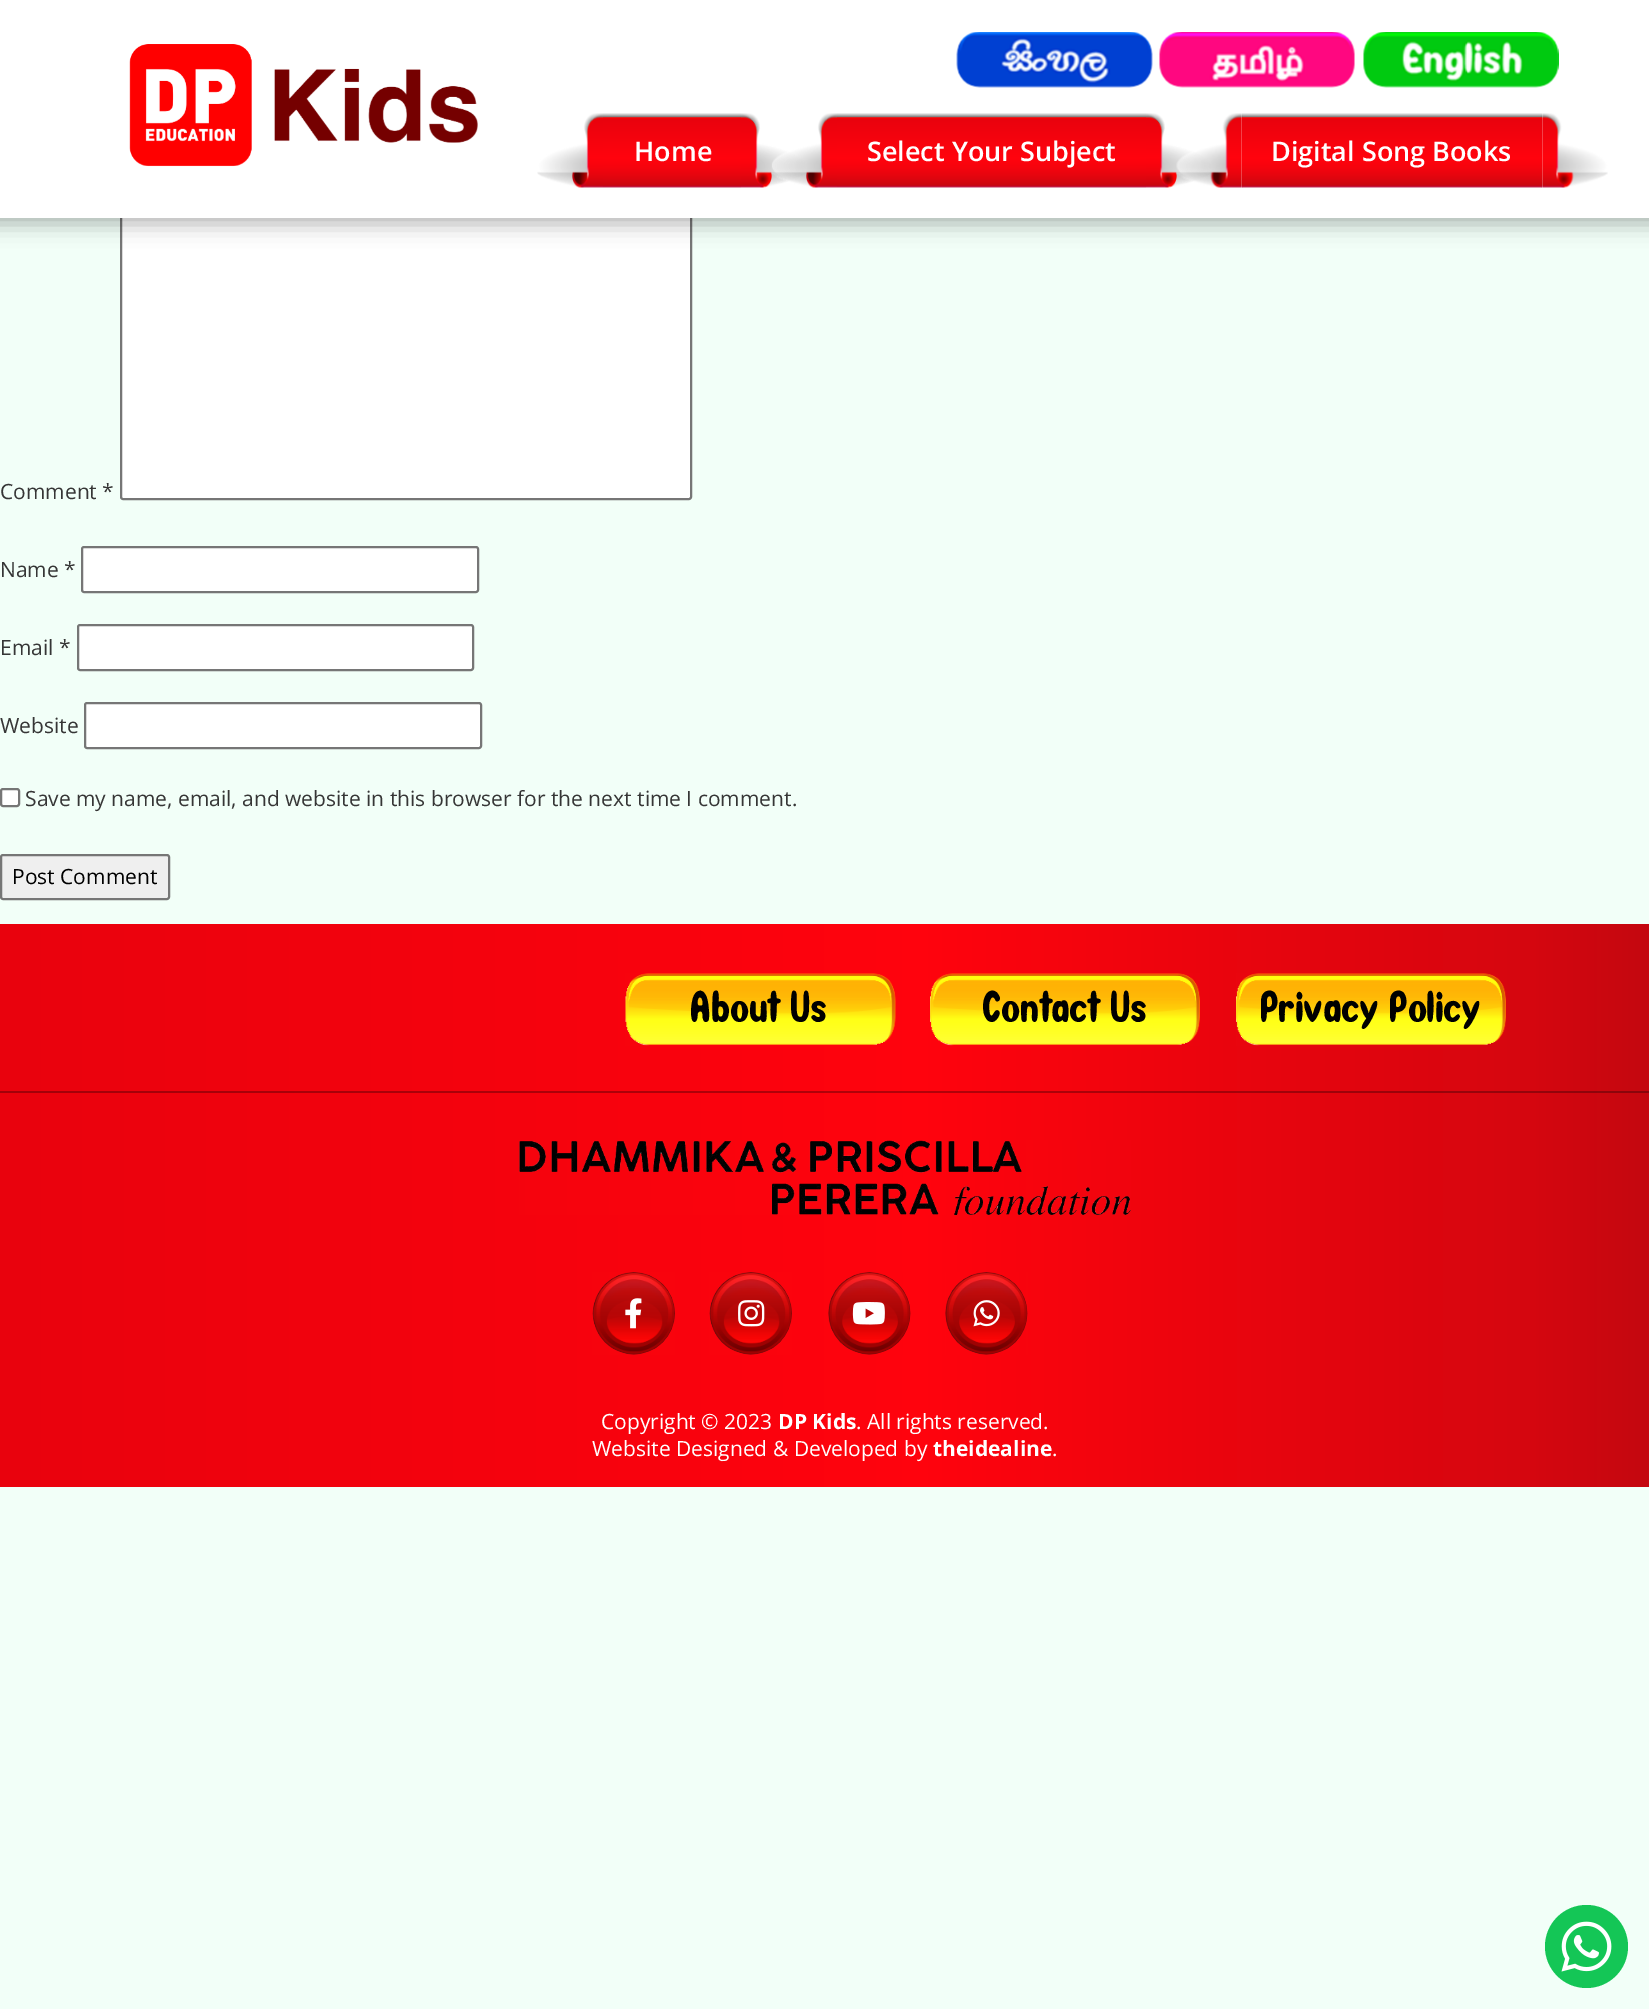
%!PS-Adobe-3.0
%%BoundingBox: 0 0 1649 2009
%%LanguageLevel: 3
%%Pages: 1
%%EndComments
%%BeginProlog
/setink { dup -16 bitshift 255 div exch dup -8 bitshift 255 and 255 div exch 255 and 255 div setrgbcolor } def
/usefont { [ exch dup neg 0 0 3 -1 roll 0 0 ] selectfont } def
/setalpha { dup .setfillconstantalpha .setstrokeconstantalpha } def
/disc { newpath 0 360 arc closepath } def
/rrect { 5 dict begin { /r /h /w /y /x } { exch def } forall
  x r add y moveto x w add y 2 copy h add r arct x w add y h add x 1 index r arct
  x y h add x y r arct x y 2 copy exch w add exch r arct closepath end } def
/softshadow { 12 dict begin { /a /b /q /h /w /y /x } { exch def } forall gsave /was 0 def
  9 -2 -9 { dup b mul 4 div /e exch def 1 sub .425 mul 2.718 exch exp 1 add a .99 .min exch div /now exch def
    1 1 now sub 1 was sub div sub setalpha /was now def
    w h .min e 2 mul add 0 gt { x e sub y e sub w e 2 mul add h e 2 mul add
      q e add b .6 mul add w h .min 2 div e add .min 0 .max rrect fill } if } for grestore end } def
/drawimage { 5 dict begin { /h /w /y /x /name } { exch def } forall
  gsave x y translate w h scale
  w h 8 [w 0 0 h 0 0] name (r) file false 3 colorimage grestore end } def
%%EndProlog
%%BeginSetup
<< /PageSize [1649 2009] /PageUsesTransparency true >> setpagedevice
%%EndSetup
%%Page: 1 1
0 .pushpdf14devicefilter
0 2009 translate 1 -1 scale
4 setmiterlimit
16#F2FFF8 setink
0 0 1649 2009 rectfill
16#FFFFFF setink
121 192 570 307 2 rrect gsave fill grestore
16#767676 setink
2 setlinewidth
stroke
16#000000 setink
-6 -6 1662 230 0 11 0.3 softshadow
16#FFFFFF setink
0 0 1649 218 rectfill
(img1.raw) 129 44 349 123 drawimage
(img2.raw) 956 32 197 56 drawimage
(img3.raw) 1159 32 196 56 drawimage
(img4.raw) 1363 32 196 56 drawimage
(img5.raw) 603 113 138 75 drawimage
(img6.raw) 537 113 66 75 drawimage
/OpenSans-SemiBold 27 usefont
634 161 moveto (Home) show
(img7.raw) 741 113 66 75 drawimage
(img8.raw) 837 113 309 75 drawimage
(img9.raw) 771 113 66 75 drawimage
867 161 moveto (Select Your Subject) show
(img7.raw) 1146 113 66 75 drawimage
(img10.raw) 1242 113 300 75 drawimage
(img11.raw) 1175 113 68 75 drawimage
1271 161 moveto (Digital Song Books) show
(img12.raw) 1541 113 67 75 drawimage
/OpenSans-Regular 21 usefont
16#363636 setink
0 499 moveto (Comment *) show
0 577 moveto (Name *) show
16#FFFFFF setink
82 547 396 45 2 rrect gsave fill grestore
16#767676 setink
stroke
16#363636 setink
0 655 moveto (Email *) show
16#FFFFFF setink
78 625 395 45 2 rrect gsave fill grestore
16#767676 setink
stroke
16#363636 setink
0 733 moveto (Website) show
16#FFFFFF setink
85 703 396 45 2 rrect gsave fill grestore
16#767676 setink
stroke
16#FFFFFF setink
1 789 18 17 2 rrect gsave fill grestore
16#767676 setink
stroke
16#363636 setink
25 806 moveto (Save my name, email, and website in this browser for the next time I comment.) show
16#EFEFEF setink
1 855 168 44 2 rrect gsave fill grestore
16#767676 setink
stroke
16#000000 setink
12 884 moveto (Post Comment) show
gsave 0 924 moveto 1649 924 lineto 1649 1487 lineto 0 1487 lineto closepath clip newpath
<< /ShadingType 2 /ColorSpace /DeviceRGB /Coords [0 1205 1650 1205] /Extend [true true] /Function << /FunctionType 3 /Domain [0 1] /Functions [<< /FunctionType 2 /Domain [0 1] /C0 [0.914 0.008 0.051] /C1 [1 0.012 0.051] /N 1 >> << /FunctionType 2 /Domain [0 1] /C0 [1 0.012 0.051] /C1 [0.835 0.024 0.059] /N 1 >> << /FunctionType 2 /Domain [0 1] /C0 [0.835 0.024 0.059] /C1 [0.769 0.031 0.063] /N 1 >>] /Bounds [0.56 0.93] /Encode [0 1 0 1 0 1] >> >> shfill grestore
gsave 0 1091 moveto 1649 1091 lineto 1649 1093 lineto 0 1093 lineto closepath clip newpath
<< /ShadingType 2 /ColorSpace /DeviceRGB /Coords [0 1205 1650 1205] /Extend [true true] /Function << /FunctionType 3 /Domain [0 1] /Functions [<< /FunctionType 2 /Domain [0 1] /C0 [0.639 0.004 0.035] /C1 [0.702 0.008 0.035] /N 1 >> << /FunctionType 2 /Domain [0 1] /C0 [0.702 0.008 0.035] /C1 [0.584 0.016 0.043] /N 1 >> << /FunctionType 2 /Domain [0 1] /C0 [0.584 0.016 0.043] /C1 [0.537 0.024 0.043] /N 1 >>] /Bounds [0.56 0.93] /Encode [0 1 0 1 0 1] >> >> shfill grestore
(img13.raw) 625 973 271 73 drawimage
/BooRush-Regular 45 usefont
691 1022 moveto (About Us) show
(img14.raw) 930 973 270 73 drawimage
983 1022 moveto (Contact Us) show
(img15.raw) 1236 973 270 73 drawimage
1261 1022 moveto (Privacy Policy) show
(img16.raw) 519 1140 612 75 drawimage
(img17.raw) 592 1272 83 83 drawimage
(img18.raw) 625 1298 17 31 drawimage
(img19.raw) 709 1272 83 83 drawimage
(img20.raw) 738 1300 27 27 drawimage
(img21.raw) 828 1272 83 83 drawimage
(img22.raw) 852 1302 33 23 drawimage
(img23.raw) 945 1272 83 83 drawimage
(img24.raw) 973 1300 27 27 drawimage
/OpenSans-Regular 21 usefont
16#FFFFFF setink
601 1429 moveto (Copyright © 2023) show
/OpenSans-Bold 21 usefont
778 1429 moveto (DP Kids) show
/OpenSans-Regular 21 usefont
856 1429 moveto (. All rights reserved.) show
592 1456 moveto (Website Designed & Developed by) show
/OpenSans-Bold 21 usefont
933 1456 moveto (theidealine) show
/OpenSans-Regular 21 usefont
1052 1456 moveto (.) show
16#14C656 setink
1586.5 1946.5 41.5 disc fill
(img25.raw) 1561 1921 51 51 drawimage
.poppdf14devicefilter showpage
%%EOF
